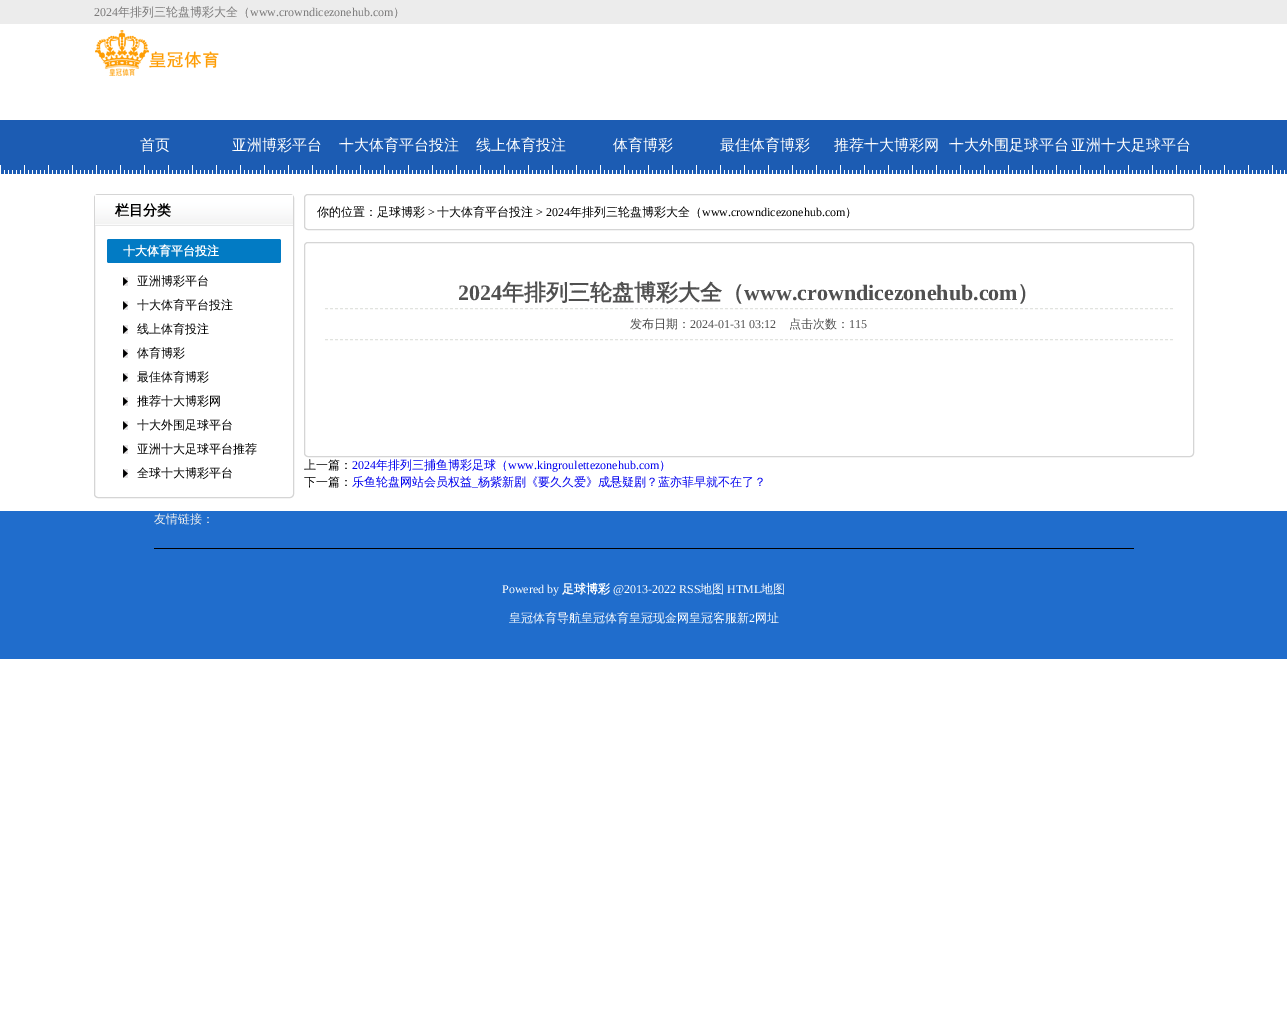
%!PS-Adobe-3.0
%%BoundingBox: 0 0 1287 1012
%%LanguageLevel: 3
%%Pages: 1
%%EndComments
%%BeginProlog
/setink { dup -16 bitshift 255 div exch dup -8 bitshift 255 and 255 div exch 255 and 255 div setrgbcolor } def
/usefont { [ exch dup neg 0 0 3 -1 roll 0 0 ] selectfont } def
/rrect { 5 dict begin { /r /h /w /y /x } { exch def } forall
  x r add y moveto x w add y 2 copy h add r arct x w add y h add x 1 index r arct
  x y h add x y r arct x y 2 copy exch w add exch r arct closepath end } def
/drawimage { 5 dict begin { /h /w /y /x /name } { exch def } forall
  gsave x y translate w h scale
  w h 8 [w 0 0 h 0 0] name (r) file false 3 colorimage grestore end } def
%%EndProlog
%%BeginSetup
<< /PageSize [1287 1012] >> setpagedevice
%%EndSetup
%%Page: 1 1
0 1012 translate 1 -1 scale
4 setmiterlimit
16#FFFFFF setink
0 0 1287 1012 rectfill
16#ECECEC setink
0 0 1287 24 rectfill
/LiberationSerif-Regular 12 usefont
16#7B7A7A setink
94 16 moveto (2024) show
/WenQuanYiZenHei-Medium 12 usefont
118 16 moveto (年排列三轮盘博彩大全（) show
/LiberationSerif-Regular 12 usefont
250 16 moveto (www.crowndicezonehub.com) show
/WenQuanYiZenHei-Medium 12 usefont
393 16 moveto (）) show
(img1.raw) 95 30 124 46 drawimage
(img2.raw) 0 120 1287 54 drawimage
/WenQuanYiZenHei-Medium 15 usefont
16#FFFFFF setink
[
    [(首页) 140 150]
    [(亚洲博彩平台) 232 150]
    [(十大体育平台投注) 339 150]
    [(线上体育投注) 476 150]
    [(体育博彩) 613 150]
    [(最佳体育博彩) 720 150]
    [(推荐十大博彩网) 834 150]
    [(十大外围足球平台) 949 150]
    [(亚洲十大足球平台) 1071 150]
] { aload pop moveto show } forall
16#D5D5D5 setink
94.5 194.5 199 303 3.5 rrect stroke
(img3.raw) 95 195 198 31 drawimage
/WenQuanYiZenHei-Bold 14 usefont
16#000000 setink
115 215 moveto (栏目分类) show
16#027BC4 setink
107 239 174 24 2 rrect fill
/WenQuanYiZenHei-Bold 12 usefont
16#FFFFFF setink
123 255 moveto (十大体育平台投注) show
(img4.raw) 123 277 5 9 drawimage
/WenQuanYiZenHei-Medium 12 usefont
16#000000 setink
137 285 moveto (亚洲博彩平台) show
(img4.raw) 123 301 5 9 drawimage
137 309 moveto (十大体育平台投注) show
(img4.raw) 123 325 5 9 drawimage
137 333 moveto (线上体育投注) show
(img4.raw) 123 349 5 9 drawimage
137 357 moveto (体育博彩) show
(img4.raw) 123 373 5 9 drawimage
137 381 moveto (最佳体育博彩) show
(img4.raw) 123 397 5 9 drawimage
137 405 moveto (推荐十大博彩网) show
(img4.raw) 123 421 5 9 drawimage
137 429 moveto (十大外围足球平台) show
(img4.raw) 123 445 5 9 drawimage
137 453 moveto (亚洲十大足球平台推荐) show
(img4.raw) 123 469 5 9 drawimage
137 477 moveto (全球十大博彩平台) show
16#D5D5D5 setink
304.5 194.5 889 35 3.5 rrect stroke
16#000000 setink
317 216 moveto (你的位置：足球博彩) show
/LiberationSerif-Regular 12 usefont
428 216 moveto (>) show
/WenQuanYiZenHei-Medium 12 usefont
437 216 moveto (十大体育平台投注) show
/LiberationSerif-Regular 12 usefont
536 216 moveto (> 2024) show
/WenQuanYiZenHei-Medium 12 usefont
570 216 moveto (年排列三轮盘博彩大全（) show
/LiberationSerif-Regular 12 usefont
702 216 moveto (www.crowndicezonehub.com) show
/WenQuanYiZenHei-Medium 12 usefont
845 216 moveto (）) show
16#D5D5D5 setink
304.5 242.5 889 214 3.5 rrect stroke
16#E1E3DF setink
[3 2] 0 setdash
325 308.5 moveto 1173 308.5 lineto stroke
/LiberationSerif-Bold 22 usefont
16#505050 setink
458 300 moveto (2024) show
/WenQuanYiZenHei-Bold 22 usefont
502 300 moveto (年排列三轮盘博彩大全（) show
/LiberationSerif-Bold 22 usefont
744 300 moveto (www.crowndicezonehub.com) show
/WenQuanYiZenHei-Bold 22 usefont
1017 300 moveto (）) show
16#E1E3DF setink
325 339.5 moveto 1173 339.5 lineto stroke
/WenQuanYiZenHei-Medium 12 usefont
16#505050 setink
630 328 moveto (发布日期：) show
/LiberationSerif-Regular 12 usefont
690 328 moveto (2024-01-31 03:12) show
/WenQuanYiZenHei-Medium 12 usefont
789 328 moveto (点击次数：) show
/LiberationSerif-Regular 12 usefont
849 328 moveto (115) show
/WenQuanYiZenHei-Medium 12 usefont
16#000000 setink
304 469 moveto (上一篇：) show
/LiberationSerif-Regular 12 usefont
16#0000EE setink
352 469 moveto (2024) show
/WenQuanYiZenHei-Medium 12 usefont
376 469 moveto (年排列三捕鱼博彩足球（) show
/LiberationSerif-Regular 12 usefont
508 469 moveto (www.kingroulettezonehub.com) show
/WenQuanYiZenHei-Medium 12 usefont
659 469 moveto (）) show
16#000000 setink
304 486 moveto (下一篇：) show
16#0000EE setink
352 486 moveto (乐鱼轮盘网站会员权益) show
/LiberationSerif-Regular 12 usefont
472 486 moveto (_) show
/WenQuanYiZenHei-Medium 12 usefont
478 486 moveto (杨紫新剧《要久久爱》成悬疑剧？蓝亦菲早就不在了？) show
16#206DCC setink
0 511 1287 148 rectfill
16#000000 setink
154 548 980 1 rectfill
16#EEEEEE setink
154 523 moveto (友情链接：) show
/LiberationSerif-Regular 12 usefont
16#FFFFFF setink
502 593 moveto (Powered by) show
/WenQuanYiZenHei-Bold 12 usefont
562 593 moveto (足球博彩) show
/LiberationSerif-Regular 12 usefont
613 593 moveto (@2013-2022 RSS) show
/WenQuanYiZenHei-Medium 12 usefont
700 593 moveto (地图) show
/LiberationSerif-Regular 12 usefont
727 593 moveto (HTML) show
/WenQuanYiZenHei-Medium 12 usefont
761 593 moveto (地图) show
509 622 moveto (皇冠体育导航皇冠体育皇冠现金网皇冠客服新) show
/LiberationSerif-Regular 12 usefont
749 622 moveto (2) show
/WenQuanYiZenHei-Medium 12 usefont
755 622 moveto (网址) show
showpage
%%EOF
